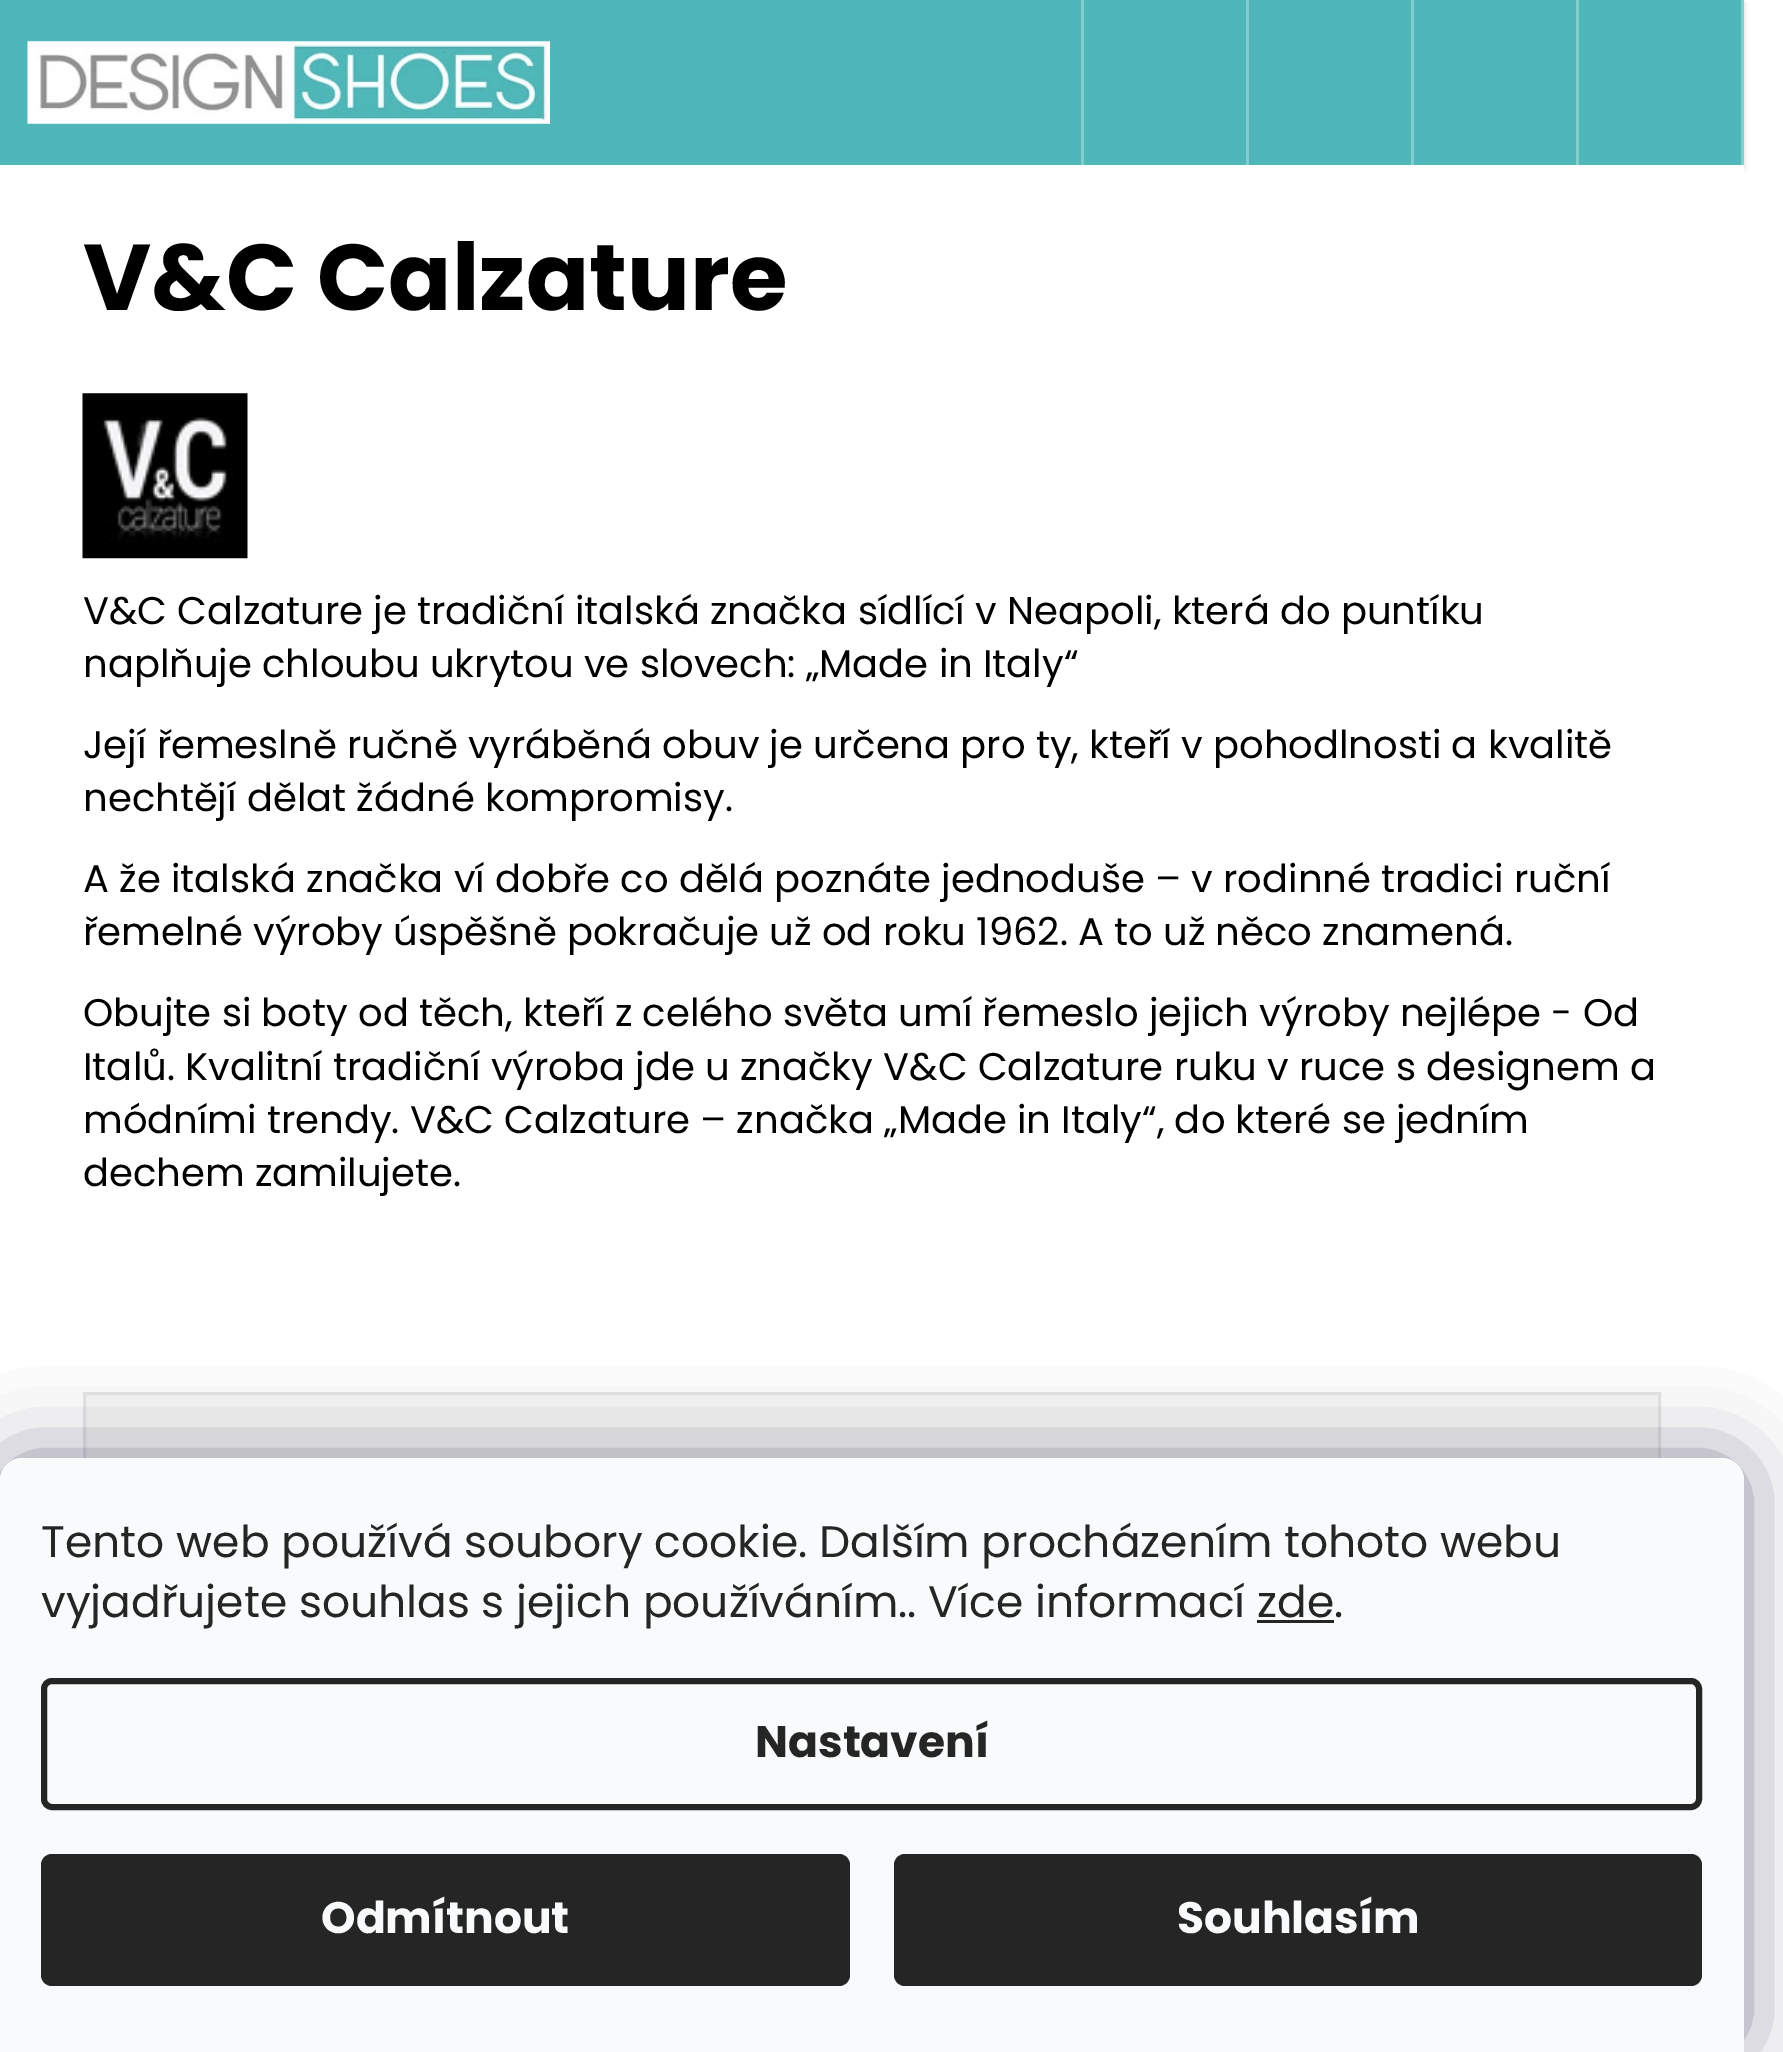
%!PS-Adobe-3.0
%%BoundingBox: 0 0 1783 2052
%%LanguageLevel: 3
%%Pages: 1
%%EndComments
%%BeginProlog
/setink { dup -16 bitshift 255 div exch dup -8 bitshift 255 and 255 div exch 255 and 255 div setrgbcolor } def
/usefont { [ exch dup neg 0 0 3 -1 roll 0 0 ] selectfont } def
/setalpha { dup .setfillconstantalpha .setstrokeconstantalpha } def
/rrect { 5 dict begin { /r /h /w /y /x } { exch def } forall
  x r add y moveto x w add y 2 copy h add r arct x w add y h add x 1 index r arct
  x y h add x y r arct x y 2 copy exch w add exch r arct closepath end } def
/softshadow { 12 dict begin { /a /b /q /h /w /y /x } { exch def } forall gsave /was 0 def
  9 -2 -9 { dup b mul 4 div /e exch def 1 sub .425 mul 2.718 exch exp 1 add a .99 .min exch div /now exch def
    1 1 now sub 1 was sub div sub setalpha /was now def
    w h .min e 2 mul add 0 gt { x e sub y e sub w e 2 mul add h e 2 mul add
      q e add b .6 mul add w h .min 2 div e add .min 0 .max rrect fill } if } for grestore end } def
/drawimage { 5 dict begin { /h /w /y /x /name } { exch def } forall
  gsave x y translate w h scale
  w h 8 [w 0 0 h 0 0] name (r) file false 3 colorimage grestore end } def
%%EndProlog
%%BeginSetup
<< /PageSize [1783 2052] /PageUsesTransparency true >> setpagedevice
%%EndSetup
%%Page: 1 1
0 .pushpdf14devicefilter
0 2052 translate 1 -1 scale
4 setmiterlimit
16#FFFFFF setink
0 0 1783 2052 rectfill
16#000000 setink
0 3 1744 165 0 3 0.16 softshadow
16#4FB7B9 setink
0 0 1741 165 rectfill
(img1.raw) 27 41 523 83 drawimage
[
    [1741 0 3 165 16#84CDCE]
    [1081 0 3 165 16#84CDCE]
    [1246 0 3 165 16#84CDCE]
    [1411 0 3 165 16#84CDCE]
    [1576 0 3 165 16#84CDCE]
    [0 165 1744 8 16#FFFFFF]
] { aload pop setink rectfill } forall
/Poppins-Bold 93.5 usefont
16#000000 setink
83 310 moveto (V&C Calzature) show
(img2.raw) 82 393 166 166 drawimage
/Poppins-Regular 38.5 usefont
[
    [(V&C Calzature je tradiční italská značka sídlící v Neapoli, která do puntíku) 83 624]
    [(naplňuje chloubu ukrytou ve slovech: „Made in Italy“) 83 677]
    [(Její řemeslně ručně vyráběná obuv je určena pro ty, kteří v pohodlnosti a kvalitě) 83 758]
    [(nechtějí dělat žádné kompromisy.) 83 811]
    [(A že italská značka ví dobře co dělá poznáte jednoduše – v rodinné tradici ruční) 83 892]
    [(řemelné výroby úspěšně pokračuje už od roku 1962. A to už něco znamená.) 83 945]
    [(Obujte si boty od těch, kteří z celého světa umí řemeslo jejich výroby nejlépe - Od) 83 1026]
    [(Italů. Kvalitní tradiční výroba jde u značky V&C Calzature ruku v ruce s designem a) 83 1080]
    [(módními trendy. V&C Calzature – značka „Made in Italy“, do které se jedním) 83 1133]
    [(dechem zamilujete.) 83 1186]
] { aload pop moveto show } forall
16#F7F7F7 setink
86 1395 1572 63 rectfill
16#E6E6E6 setink
3 setlinewidth
84.5 1393.5 1575 156 rectstroke
16#1B1939 setink
0 1458 1744 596 22 41 0.5 softshadow
16#F8FAFB setink
22 1458 moveto 1722 1458 lineto 1734 1458 1744 1468 1744 1480 curveto 1744 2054 lineto 0 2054 lineto 0 1480 lineto 0 1468 10 1458 22 1458 curveto closepath fill
/Poppins-Regular 44 usefont
16#252525 setink
41 1557 moveto (Tento web používá soubory cookie. Dalším procházením tohoto webu) show
41 1617 moveto (vyjadřujete souhlas s jejich používáním.. Více informací zde.) show
1257 1620 77 3 rectfill
6 setlinewidth
44 1681 1655 126 8 rrect stroke
/Poppins-Bold 44 usefont
755 1757 moveto (Nastavení) show
41 1854 809 132 11 rrect fill
16#F8FAFB setink
321 1933 moveto (Odmítnout) show
16#252525 setink
894 1854 808 132 11 rrect fill
16#F8FAFB setink
1177 1933 moveto (Souhlasím) show
.poppdf14devicefilter showpage
%%EOF
